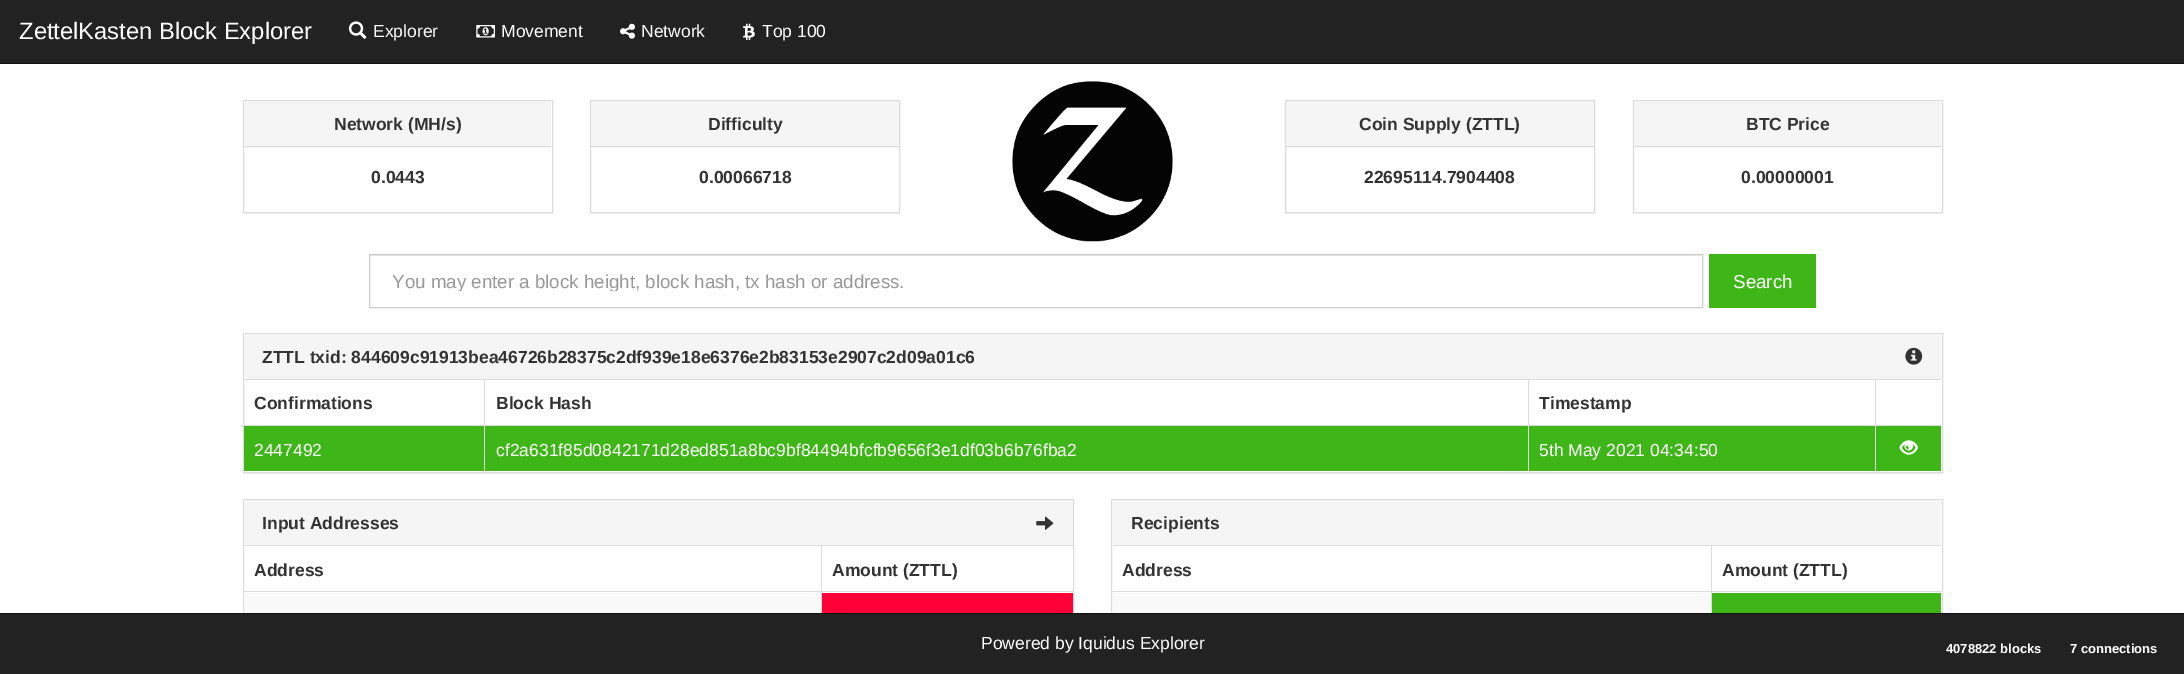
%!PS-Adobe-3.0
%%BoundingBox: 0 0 2184 674
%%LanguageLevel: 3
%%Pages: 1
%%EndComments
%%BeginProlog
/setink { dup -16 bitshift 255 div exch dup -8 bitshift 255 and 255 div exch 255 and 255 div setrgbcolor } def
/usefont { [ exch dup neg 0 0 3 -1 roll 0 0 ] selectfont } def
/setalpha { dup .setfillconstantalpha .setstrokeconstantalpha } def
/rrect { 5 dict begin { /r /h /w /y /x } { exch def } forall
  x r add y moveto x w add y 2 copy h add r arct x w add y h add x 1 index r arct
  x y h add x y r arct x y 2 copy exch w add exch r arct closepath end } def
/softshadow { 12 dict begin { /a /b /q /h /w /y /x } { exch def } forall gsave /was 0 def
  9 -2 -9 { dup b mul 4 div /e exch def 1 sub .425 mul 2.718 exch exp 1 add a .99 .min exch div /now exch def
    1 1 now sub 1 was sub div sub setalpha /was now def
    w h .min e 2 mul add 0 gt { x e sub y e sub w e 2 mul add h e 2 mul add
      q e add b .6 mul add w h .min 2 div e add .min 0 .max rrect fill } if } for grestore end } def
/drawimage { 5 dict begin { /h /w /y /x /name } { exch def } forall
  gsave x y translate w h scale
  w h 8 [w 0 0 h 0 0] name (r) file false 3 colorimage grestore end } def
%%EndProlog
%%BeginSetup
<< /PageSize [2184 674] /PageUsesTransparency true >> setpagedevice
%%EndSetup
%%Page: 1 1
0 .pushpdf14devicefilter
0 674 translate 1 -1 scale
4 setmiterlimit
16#FFFFFF setink
0 0 2184 674 rectfill
16#222222 setink
0 0 2184 63 rectfill
16#121212 setink
0 63 2184 1 rectfill
/LiberationSans-Regular 23.75 usefont
16#FFFFFF setink
19 39 moveto (ZettelKasten Block Explorer) show
(img1.raw) 348 21 19 18 drawimage
/LiberationSans-Regular 17.5 usefont
373 37 moveto (Explorer) show
(img2.raw) 476 25 19 13 drawimage
501 37 moveto (Movement) show
(img3.raw) 620 23 15 16 drawimage
641 37 moveto (Network) show
(img4.raw) 743 23 12 17 drawimage
762 37 moveto (Top 100) show
16#000000 setink
243 101 310 113 0 0.5 0.05 softshadow
16#FFFFFF setink
243.5 100.5 moveto 552.5 100.5 lineto 552.5 212.5 lineto 243.5 212.5 lineto closepath gsave fill grestore
16#DDDDDD setink
stroke
16#F5F5F5 setink
244 101 307 47 rectfill
16#DDDDDD setink
244 146 307 1 rectfill
/LiberationSans-Bold 17.5 usefont
16#333333 setink
334 130 moveto (Network \(MH/s\)) show
371 183 moveto (0.0443) show
16#000000 setink
590 101 310 113 0 0.5 0.05 softshadow
16#FFFFFF setink
591 148 308 64 rectfill
16#DDDDDD setink
590.5 100.5 309 112 rectstroke
16#F5F5F5 setink
591 102 308 46 rectfill
16#DDDDDD setink
591 146 308 1 rectfill
16#333333 setink
708 130 moveto (Difficulty) show
699 183 moveto (0.00066718) show
(img5.raw) 1012 81 161 161 drawimage
16#000000 setink
1285 101 310 113 0 0.5 0.05 softshadow
16#FFFFFF setink
1286 148 308 64 rectfill
16#DDDDDD setink
1285.5 100.5 309 112 rectstroke
16#F5F5F5 setink
1286 102 308 46 rectfill
16#DDDDDD setink
1286 146 308 1 rectfill
16#333333 setink
1359 130 moveto (Coin Supply \(ZTTL\)) show
1364 183 moveto (22695114.7904408) show
16#000000 setink
1633 101 310 113 0 0.5 0.05 softshadow
16#FFFFFF setink
1633.5 100.5 moveto 1942.5 100.5 lineto 1942.5 212.5 lineto 1633.5 212.5 lineto closepath gsave fill grestore
16#DDDDDD setink
stroke
16#F5F5F5 setink
1634 101 307 47 rectfill
16#DDDDDD setink
1634 146 307 1 rectfill
16#333333 setink
1746 130 moveto (BTC Price) show
1741 183 moveto (0.00000001) show
16#ECECEC setink
370 255 1331 1 rectfill
16#CCCCCC setink
369.5 254.5 1333 53 rectstroke
gsave
393 270 1286 21 rectclip
/LiberationSans-Regular 18.75 usefont
16#999999 setink
392 288 moveto (You may enter a block height, block hash, tx hash or address.) show
grestore
16#3FB618 setink
1709 254 107 54 rectfill
/LiberationSans-Regular 18.75 usefont
16#FFFFFF setink
1733 288 moveto (Search) show
16#000000 setink
243 334 1700 140 0 0.5 0.05 softshadow
16#FFFFFF setink
243.5 333.5 moveto 1942.5 333.5 lineto 1942.5 472.5 lineto 243.5 472.5 lineto closepath gsave fill grestore
16#DDDDDD setink
stroke
16#F5F5F5 setink
244 334 1697 45 rectfill
16#DDDDDD setink
244 379 1697 1 rectfill
/LiberationSans-Bold 17.5 usefont
16#333333 setink
262 363 moveto (ZTTL txid: 844609c91913bea46726b28375c2df939e18e6376e2b83153e2907c2d09a01c6) show
(img6.raw) 1905 347 18 18 drawimage
[
    [(Confirmations) 254 409]
    [(Block Hash) 496 409]
    [(Timestamp) 1539 409]
] { aload pop moveto show } forall
16#3FB618 setink
1876 426 65 45 rectfill
16#DDDDDD setink
243 425 1698 1 rectfill
(img7.raw) 1899 440 19 15 drawimage
16#3FB618 setink
244 426 240 45 rectfill
16#DDDDDD setink
484 380 1 93 rectfill
/LiberationSans-Regular 17.5 usefont
16#FFFFFF setink
254 456 moveto (2447492) show
16#3FB618 setink
485 426 1043 45 rectfill
16#DDDDDD setink
1528 380 1 93 rectfill
16#FFFFFF setink
496 456 moveto (cf2a631f85d0842171d28ed851a8bc9bf84494bfcfb9656f3e1df03b6b76fba2) show
16#3FB618 setink
1529 426 346 45 rectfill
16#DDDDDD setink
1875 380 1 93 rectfill
16#FFFFFF setink
1539 456 moveto (5th May 2021 04:34:50) show
16#DDDDDD setink
243.5 499.5 830 139 rectstroke
16#F5F5F5 setink
244 500 829 45 rectfill
16#DDDDDD setink
244 545 829 1 rectfill
/LiberationSans-Bold 17.5 usefont
16#333333 setink
262 529 moveto (Input Addresses) show
(img8.raw) 1036 516 18 14 drawimage
[
    [244 593 577 20 16#F9F9F9]
    [243 591 830 1 16#DDDDDD]
    [821 546 1 67 16#DDDDDD]
    [822 593 251 20 16#FF0039]
] { aload pop setink rectfill } forall
16#333333 setink
254 576 moveto (Address) show
832 576 moveto (Amount \(ZTTL\)) show
16#DDDDDD setink
1111.5 499.5 831 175 rectstroke
16#F5F5F5 setink
1113 500 828 45 rectfill
16#DDDDDD setink
1113 545 828 1 rectfill
16#333333 setink
1131 529 moveto (Recipients) show
[
    [1113 593 598 20 16#F9F9F9]
    [1111 591 830 1 16#DDDDDD]
    [1711 546 1 67 16#DDDDDD]
    [1712 593 229 20 16#3FB618]
] { aload pop setink rectfill } forall
16#333333 setink
1122 576 moveto (Address) show
1722 576 moveto (Amount \(ZTTL\)) show
16#222222 setink
0 614 2184 60 rectfill
16#121212 setink
0 613 2184 1 rectfill
/LiberationSans-Regular 17.5 usefont
16#FFFFFF setink
981 649 moveto (Powered by Iquidus Explorer) show
/LiberationSans-Bold 13 usefont
1946 653 moveto (4078822 blocks) show
2070 653 moveto (7 connections) show
.poppdf14devicefilter showpage
%%EOF
